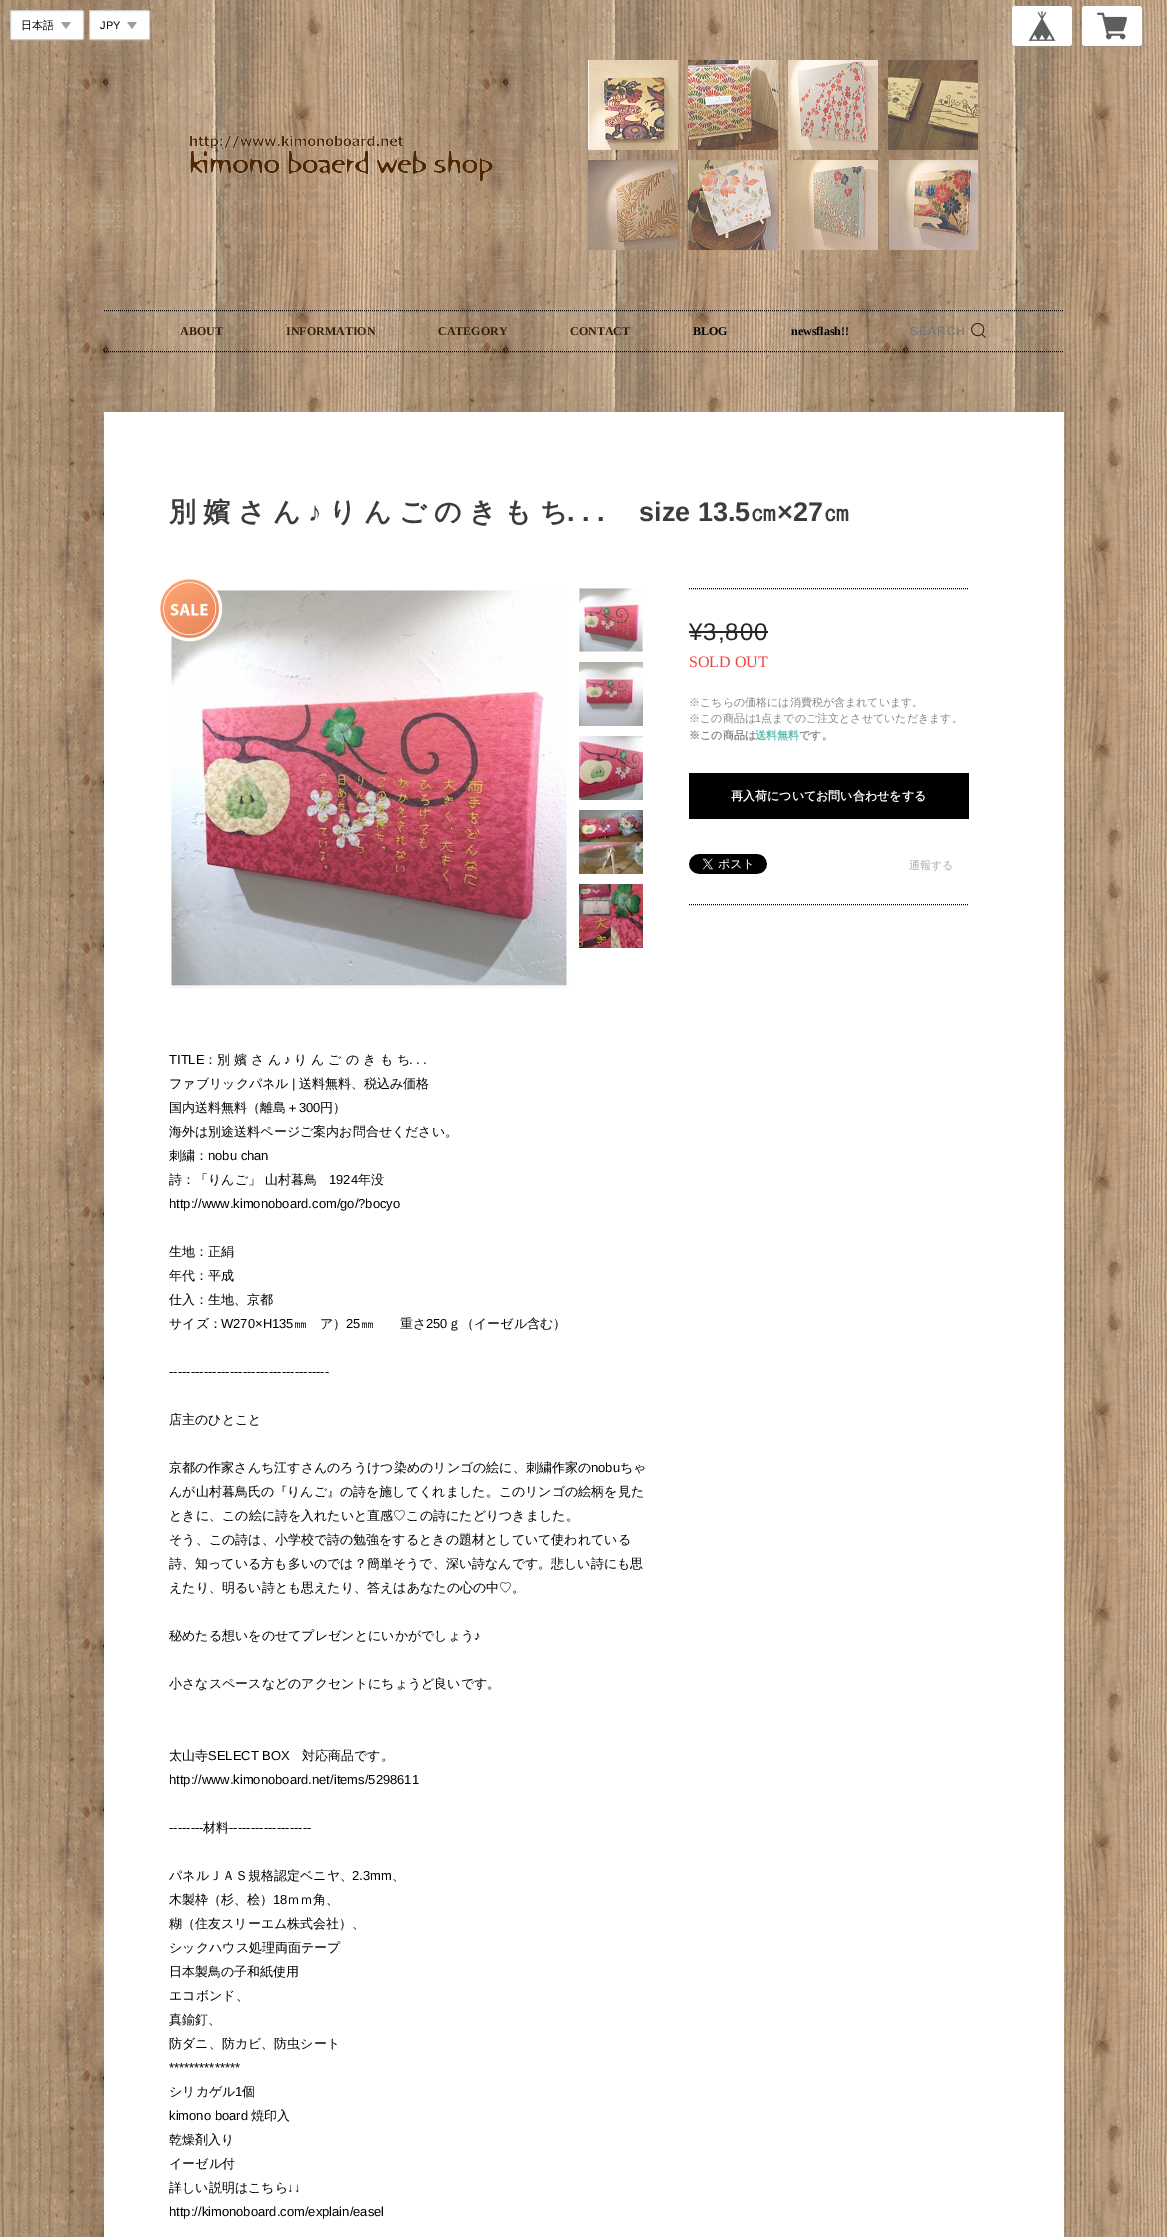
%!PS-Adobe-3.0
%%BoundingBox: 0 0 1167 2237
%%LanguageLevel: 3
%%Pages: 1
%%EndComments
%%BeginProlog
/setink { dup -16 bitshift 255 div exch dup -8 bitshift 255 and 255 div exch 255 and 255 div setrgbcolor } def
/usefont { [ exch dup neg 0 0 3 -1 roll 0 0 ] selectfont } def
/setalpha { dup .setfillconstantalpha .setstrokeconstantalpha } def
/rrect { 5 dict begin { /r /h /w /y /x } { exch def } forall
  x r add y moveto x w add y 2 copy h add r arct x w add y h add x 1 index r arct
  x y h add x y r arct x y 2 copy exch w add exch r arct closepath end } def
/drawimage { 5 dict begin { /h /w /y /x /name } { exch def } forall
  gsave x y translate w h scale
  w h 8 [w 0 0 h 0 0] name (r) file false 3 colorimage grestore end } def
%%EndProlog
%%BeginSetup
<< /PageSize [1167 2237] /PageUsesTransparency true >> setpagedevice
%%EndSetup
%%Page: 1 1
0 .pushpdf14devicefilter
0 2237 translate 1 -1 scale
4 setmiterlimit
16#FFFFFF setink
0 0 1167 2237 rectfill
(img1.raw) 0 0 1167 2237 drawimage
10.5 10.5 73 29 1.5 rrect gsave fill grestore
16#CCCCCC setink
stroke
/WenQuanYiZenHei-Medium 11 usefont
16#000000 setink
21 29 moveto (日本語) show
(img2.raw) 61 22 10 7 drawimage
16#FFFFFF setink
89.5 10.5 60 29 1.5 rrect gsave fill grestore
16#CCCCCC setink
stroke
/LiberationSans-Regular 11 usefont
16#000000 setink
100 29 moveto (JPY) show
(img2.raw) 127 22 10 7 drawimage
0.4 setalpha
16#969696 setink
1015 6 moveto 1013 6 1011 8 1011 10 curveto 1011 44 lineto 1011 46 1013 48 1015 48 curveto 1069 48 lineto 1071 48 1073 46 1073 44 curveto 1073 10 lineto 1073 8 1071 6 1069 6 curveto 1071 6 1072 7 1072 9 curveto 1072 43 lineto 1072 45 1071 46 1069 46 curveto 1015 46 lineto 1013 46 1012 45 1012 43 curveto 1012 9 lineto 1012 7 1013 6 1015 6 curveto closepath fill
1 setalpha
16#FFFFFF setink
1012 6 60 40 3 rrect fill
(img3.raw) 1028 11 28 30 drawimage
0.4 setalpha
16#969696 setink
1085 6 moveto 1083 6 1081 8 1081 10 curveto 1081 44 lineto 1081 46 1083 48 1085 48 curveto 1139 48 lineto 1141 48 1143 46 1143 44 curveto 1143 10 lineto 1143 8 1141 6 1139 6 curveto 1141 6 1142 7 1142 9 curveto 1142 43 lineto 1142 45 1141 46 1139 46 curveto 1085 46 lineto 1083 46 1082 45 1082 43 curveto 1082 9 lineto 1082 7 1083 6 1085 6 curveto closepath fill
1 setalpha
16#FFFFFF setink
1082 6 60 40 3 rrect fill
(img4.raw) 1097 12 30 28 drawimage
(img5.raw) 190 60 788 190 drawimage
16#000000 setink
[1 1] 0 setdash
104 310.5 moveto 1064 310.5 lineto stroke
104 351.5 moveto 1064 351.5 lineto stroke
/LiberationSerif-Bold 12 usefont
16#301F09 setink
[
    [(ABOUT) 180 335]
    [(INFORMATION) 286 335]
    [(CATEGORY) 438 335]
    [(CONTACT) 570 335]
] { aload pop moveto show } forall
16#000000 setink
693 335 moveto (BLOG) show
791 335 moveto (newsflash!!) show
/LiberationSans-Regular 12 usefont
16#757575 setink
910 335 moveto 1 0 (SEARCH) ashow
(img6.raw) 971 323 15 15 drawimage
16#FFFFFF setink
104 412 960 1825 rectfill
/WenQuanYiZenHei-Bold 27 usefont
16#3C3C3C setink
[
    [(別) 169 521]
    [(嬪) 203 521]
    [(さ) 238 521]
    [(ん) 273 521]
] { aload pop moveto show } forall
/LiberationSans-Bold 27 usefont
308 521 moveto (♪) show
/WenQuanYiZenHei-Bold 27 usefont
[
    [(り) 329 521]
    [(ん) 364 521]
    [(ご) 399 521]
    [(の) 434 521]
    [(き) 469 521]
    [(も) 504 521]
    [(ち) 540 521]
] { aload pop moveto show } forall
/LiberationSans-Bold 27 usefont
567 521 moveto (. . .) show
639 521 moveto (size 13.5) show
/WenQuanYiZenHei-Bold 27 usefont
750 521 moveto (㎝) show
/LiberationSans-Bold 27 usefont
777 521 moveto (×27) show
/WenQuanYiZenHei-Bold 27 usefont
823 521 moveto (㎝) show
16#000000 setink
689 588.5 moveto 969 588.5 lineto stroke
689 904.5 moveto 969 904.5 lineto stroke
/LiberationSans-Regular 24 usefont
16#262626 setink
689 640 moveto 1 0 (¥3,800) ashow
689 631 79 2 rectfill
/LiberationSerif-Regular 16 usefont
16#ED4242 setink
689 667 moveto (SOLD OUT) show
/WenQuanYiZenHei-Medium 11 usefont
16#868686 setink
689 706 moveto (※こちらの価格には消費税が含まれています。) show
689 722 moveto (※この商品は) show
/LiberationSans-Regular 11 usefont
755 722 moveto (1) show
/WenQuanYiZenHei-Medium 11 usefont
761 722 moveto (点までのご注文とさせていただきます。) show
/WenQuanYiZenHei-Bold 11 usefont
689 739 moveto (※この商品は) show
16#57BBAE setink
755 739 moveto (送料無料) show
16#868686 setink
799 739 moveto (です。) show
16#000000 setink
689 773 280 46 rectfill
/WenQuanYiZenHei-Bold 12 usefont
16#FFFFFF setink
731 800 moveto (再入荷についてお問い合わせをする) show
(img7.raw) 689 854 78 20 drawimage
/WenQuanYiZenHei-Medium 11 usefont
16#AAAAAA setink
909 869 moveto (通報する) show
(img9.raw) 169 590 400 398 drawimage
(img8.raw) 160 579 63 63 drawimage
(img10.raw) 579 588 64 64 drawimage
(img11.raw) 579 662 64 64 drawimage
(img12.raw) 579 736 64 64 drawimage
(img13.raw) 579 810 64 64 drawimage
(img14.raw) 579 884 64 64 drawimage
/LiberationSans-Regular 13 usefont
16#000000 setink
169 1064 moveto (TITLE) show
/WenQuanYiZenHei-Medium 13 usefont
204 1064 moveto (：別 嬪 さ ん) show
/LiberationSans-Regular 13 usefont
284 1064 moveto (♪) show
/WenQuanYiZenHei-Medium 13 usefont
294 1064 moveto (り ん ご の き も ち) show
/LiberationSans-Regular 13 usefont
409 1064 moveto (. . .) show
/WenQuanYiZenHei-Medium 13 usefont
169 1088 moveto (ファブリックパネル) show
/LiberationSans-Regular 13 usefont
292 1088 moveto (|) show
/WenQuanYiZenHei-Medium 13 usefont
299 1088 moveto (送料無料、税込み価格) show
169 1112 moveto (国内送料無料（離島＋) show
/LiberationSans-Regular 13 usefont
299 1112 moveto (300) show
/WenQuanYiZenHei-Medium 13 usefont
[
    [(円）) 320 1112]
    [(海外は別途送料ページご案内お問合せください。) 169 1136]
    [(刺繍：) 169 1160]
] { aload pop moveto show } forall
/LiberationSans-Regular 13 usefont
208 1160 moveto (nobu chan) show
/WenQuanYiZenHei-Medium 13 usefont
169 1184 moveto (詩：「りんご」 山村暮鳥) show
/LiberationSans-Regular 13 usefont
329 1184 moveto (1924) show
/WenQuanYiZenHei-Medium 13 usefont
358 1184 moveto (年没) show
/LiberationSans-Regular 13 usefont
169 1208 moveto (http://www.kimonoboard.com/go/?bocyo) show
/WenQuanYiZenHei-Medium 13 usefont
[
    [(生地：正絹) 169 1256]
    [(年代：平成) 169 1280]
    [(仕入：生地、京都) 169 1304]
    [(サイズ：) 169 1328]
] { aload pop moveto show } forall
/LiberationSans-Regular 13 usefont
221 1328 moveto (W270×H135) show
/WenQuanYiZenHei-Medium 13 usefont
294 1328 moveto (㎜　ア）) show
/LiberationSans-Regular 13 usefont
346 1328 moveto (25) show
/WenQuanYiZenHei-Medium 13 usefont
361 1328 moveto (㎜　　重さ) show
/LiberationSans-Regular 13 usefont
426 1328 moveto (250) show
/WenQuanYiZenHei-Medium 13 usefont
448 1328 moveto (ｇ（イーゼル含む）) show
/LiberationSans-Regular 13 usefont
169 1376 moveto (-------------------------------------) show
/WenQuanYiZenHei-Medium 13 usefont
169 1424 moveto (店主のひとこと) show
169 1472 moveto (京都の作家さんち江すさんのろうけつ染めのリンゴの絵に、刺繍作家の) show
/LiberationSans-Regular 13 usefont
591 1472 moveto (nobu) show
/WenQuanYiZenHei-Medium 13 usefont
[
    [(ちゃ) 620 1472]
    [(んが山村暮鳥氏の『りんご』の詩を施してくれました。このリンゴの絵柄を見た) 169 1496]
    [(ときに、この絵に詩を入れたいと直感♡この詩にたどりつきました。) 169 1520]
    [(そう、この詩は、小学校で詩の勉強をするときの題材としていて使われている) 169 1544]
    [(詩、知っている方も多いのでは？簡単そうで、深い詩なんです。悲しい詩にも思) 169 1568]
    [(えたり、明るい詩とも思えたり、答えはあなたの心の中♡。) 169 1592]
    [(秘めたる想いをのせてプレゼンとにいかがでしょう) 169 1640]
] { aload pop moveto show } forall
/LiberationSans-Regular 13 usefont
474 1640 moveto (♪) show
/WenQuanYiZenHei-Medium 13 usefont
169 1688 moveto (小さなスペースなどのアクセントにちょうど良いです。) show
169 1760 moveto (太山寺) show
/LiberationSans-Regular 13 usefont
208 1760 moveto (SELECT BOX) show
/WenQuanYiZenHei-Medium 13 usefont
302 1760 moveto (対応商品です。) show
/LiberationSans-Regular 13 usefont
169 1784 moveto (http://www.kimonoboard.net/items/5298611) show
169 1832 moveto (--------) show
/WenQuanYiZenHei-Medium 13 usefont
203 1832 moveto (材料) show
/LiberationSans-Regular 13 usefont
229 1832 moveto (-------------------) show
/WenQuanYiZenHei-Medium 13 usefont
169 1880 moveto (パネルＪＡＳ規格認定ベニヤ、) show
/LiberationSans-Regular 13 usefont
352 1880 moveto (2.3mm) show
/WenQuanYiZenHei-Medium 13 usefont
392 1880 moveto (、) show
169 1904 moveto (木製枠（杉、桧）) show
/LiberationSans-Regular 13 usefont
273 1904 moveto (18) show
/WenQuanYiZenHei-Medium 13 usefont
[
    [(ｍｍ角、) 287 1904]
    [(糊（住友スリーエム株式会社）、) 169 1928]
    [(シックハウス処理両面テープ) 169 1952]
    [(日本製鳥の子和紙使用) 169 1976]
    [(エコボンド、) 169 2000]
    [(真鍮釘、) 169 2024]
    [(防ダニ、防カビ、防虫シート) 169 2048]
] { aload pop moveto show } forall
/LiberationSans-Regular 13 usefont
169 2072 moveto (**************) show
/WenQuanYiZenHei-Medium 13 usefont
169 2096 moveto (シリカゲル) show
/LiberationSans-Regular 13 usefont
235 2096 moveto (1) show
/WenQuanYiZenHei-Medium 13 usefont
242 2096 moveto (個) show
/LiberationSans-Regular 13 usefont
169 2120 moveto (kimono board) show
/WenQuanYiZenHei-Medium 13 usefont
[
    [(焼印入) 251 2120]
    [(乾燥剤入り) 169 2144]
    [(イーゼル付) 169 2168]
    [(詳しい説明はこちら) 169 2192]
] { aload pop moveto show } forall
/LiberationSans-Regular 13 usefont
287 2192 moveto (↓↓) show
169 2216 moveto (http://kimonoboard.com/explain/easel) show
.poppdf14devicefilter showpage
%%EOF
